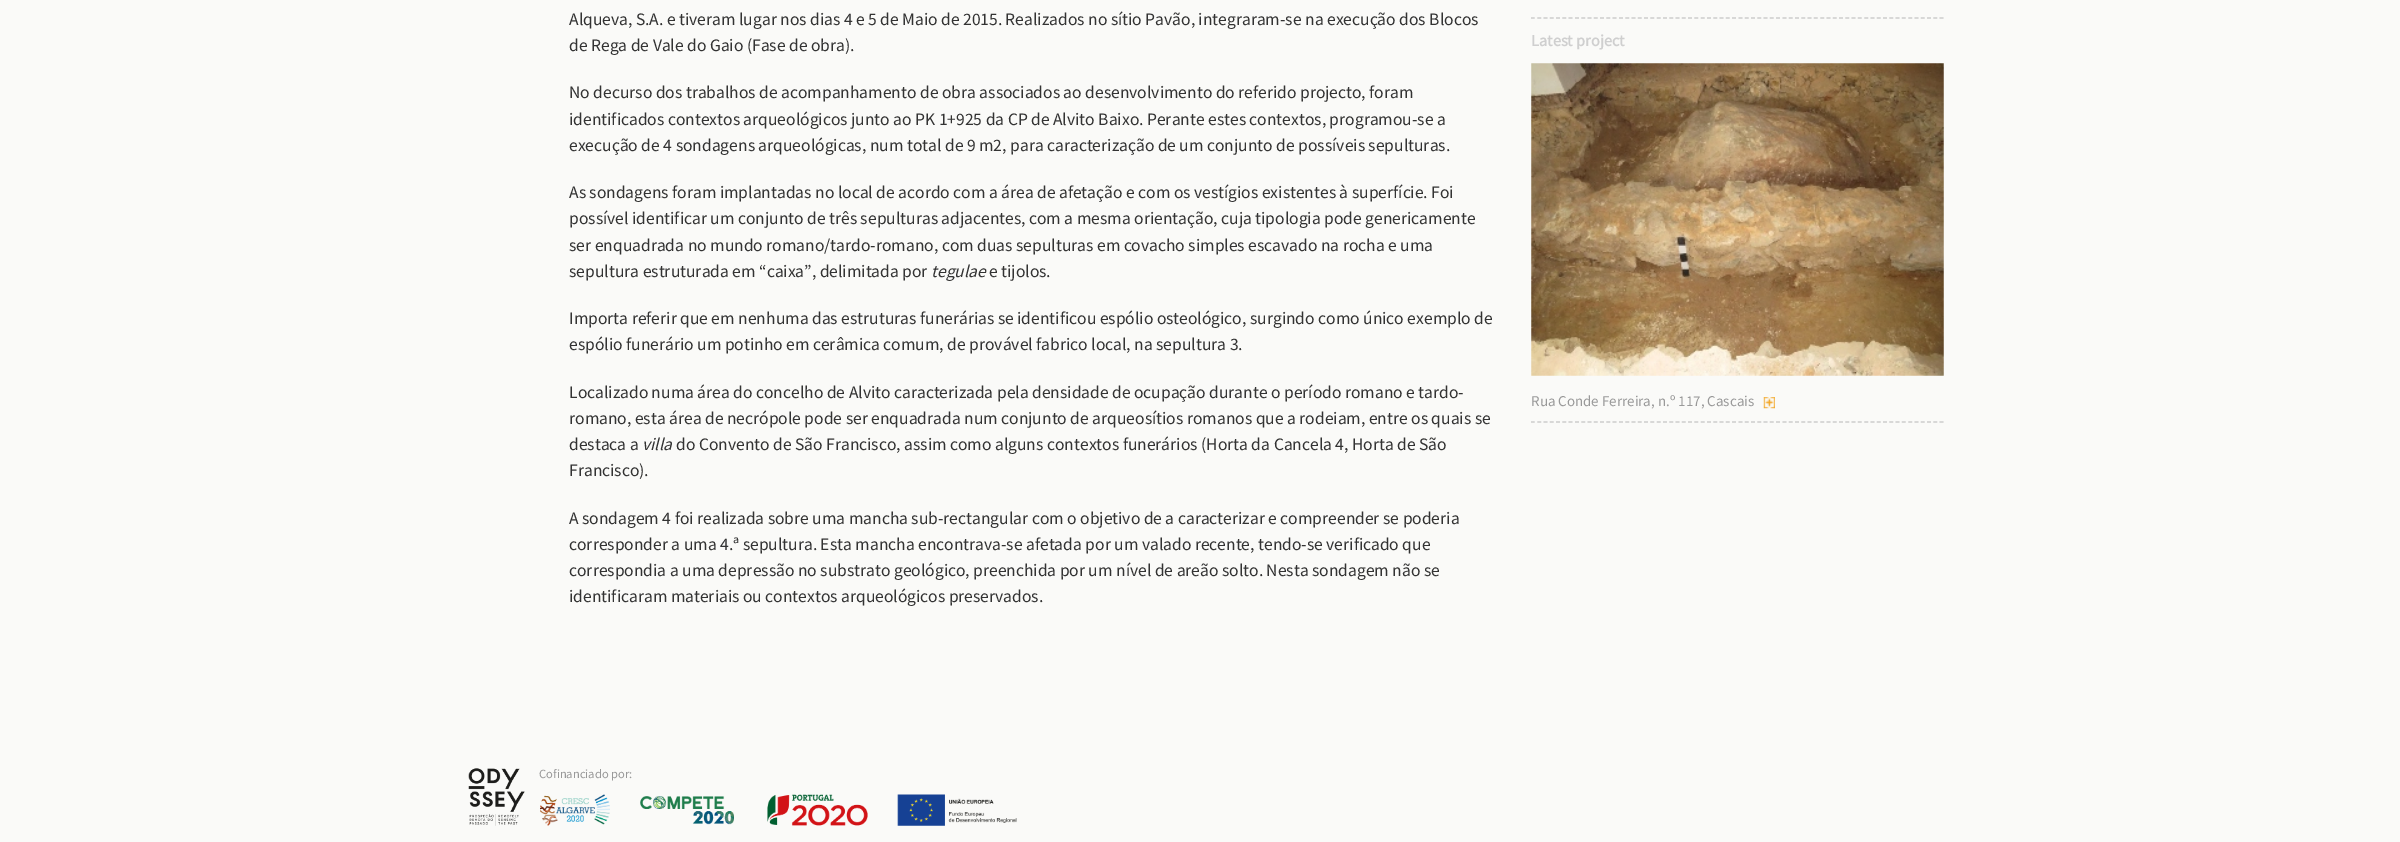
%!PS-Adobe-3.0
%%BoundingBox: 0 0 2400 842
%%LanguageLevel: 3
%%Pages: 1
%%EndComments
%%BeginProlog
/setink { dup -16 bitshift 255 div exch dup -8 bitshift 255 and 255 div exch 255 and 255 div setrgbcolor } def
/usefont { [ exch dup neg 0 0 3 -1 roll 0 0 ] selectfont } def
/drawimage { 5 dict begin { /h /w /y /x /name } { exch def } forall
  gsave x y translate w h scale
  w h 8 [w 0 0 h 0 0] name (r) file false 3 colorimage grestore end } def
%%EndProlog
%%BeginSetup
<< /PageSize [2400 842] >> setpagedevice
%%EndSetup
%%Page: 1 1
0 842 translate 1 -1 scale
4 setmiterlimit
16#FAFAF8 setink
0 0 2400 842 rectfill
/SourceSansPro-Regular 17.5 usefont
16#333333 setink
[
    [(Alqueva, S.A. e tiveram lugar nos dias 4 e 5 de Maio de 2015. Realizados no sítio Pavão, integraram-se na execução dos Blocos) 569 25]
    [(de Rega de Vale do Gaio \(Fase de obra\).) 569 51]
    [(No decurso dos trabalhos de acompanhamento de obra associados ao desenvolvimento do referido projecto, foram) 569 98]
    [(identificados contextos arqueológicos junto ao PK 1+925 da CP de Alvito Baixo. Perante estes contextos, programou-se a) 569 125]
    [(execução de 4 sondagens arqueológicas, num total de 9 m2, para caracterização de um conjunto de possíveis sepulturas.) 569 151]
    [(As sondagens foram implantadas no local de acordo com a área de afetação e com os vestígios existentes à superfície. Foi) 569 198]
    [(possível identificar um conjunto de três sepulturas adjacentes, com a mesma orientação, cuja tipologia pode genericamente) 569 224]
    [(ser enquadrada no mundo romano/tardo-romano, com duas sepulturas em covacho simples escavado na rocha e uma) 569 251]
    [(sepultura estruturada em “caixa”, delimitada por) 569 277]
] { aload pop moveto show } forall
/SourceSansPro-Italic 17.5 usefont
931 277 moveto (tegulae) show
/SourceSansPro-Regular 17.5 usefont
[
    [(e tijolos.) 989 277]
    [(Importa referir que em nenhuma das estruturas funerárias se identificou espólio osteológico, surgindo como único exemplo de) 569 324]
    [(espólio funerário um potinho em cerâmica comum, de provável fabrico local, na sepultura 3.) 569 350]
    [(Localizado numa área do concelho de Alvito caracterizada pela densidade de ocupação durante o período romano e tardo-) 569 398]
    [(romano, esta área de necrópole pode ser enquadrada num conjunto de arqueosítios romanos que a rodeiam, entre os quais se) 569 424]
    [(destaca a) 569 450]
] { aload pop moveto show } forall
/SourceSansPro-Italic 17.5 usefont
642 450 moveto (villa) show
/SourceSansPro-Regular 17.5 usefont
[
    [(do Convento de São Francisco, assim como alguns contextos funerários \(Horta da Cancela 4, Horta de São) 676 450]
    [(Francisco\).) 569 476]
    [(A sondagem 4 foi realizada sobre uma mancha sub-rectangular com o objetivo de a caracterizar e compreender se poderia) 569 524]
    [(corresponder a uma 4.ª sepultura. Esta mancha encontrava-se afetada por um valado recente, tendo-se verificado que) 569 550]
    [(correspondia a uma depressão no substrato geológico, preenchida por um nível de areão solto. Nesta sondagem não se) 569 576]
    [(identificaram materiais ou contextos arqueológicos preservados.) 569 602]
] { aload pop moveto show } forall
16#CCCCCC setink
1.2 setlinewidth
[3.75 2.54] 0 setdash
1531 18 moveto 1944 18 lineto stroke
1531 422 moveto 1944 422 lineto stroke
/SourceSansPro-Bold 16.25 usefont
16#CFCFCF setink
1531 46 moveto (Latest project) show
(img1.raw) 1531 63 413 313 drawimage
/SourceSansPro-Regular 15 usefont
16#999999 setink
1531 406 moveto (Rua Conde Ferreira, n.º 117, Cascais) show
(img2.raw) 1763 397 12 12 drawimage
(img3.raw) 468 768 57 58 drawimage
/SourceSansPro-Regular 12.5 usefont
539 778 moveto (Cofinanciado por:) show
(img4.raw) 540 794 70 32 drawimage
(img5.raw) 640 796 94 29 drawimage
(img6.raw) 767 794 101 32 drawimage
(img7.raw) 897 794 120 32 drawimage
showpage
%%EOF
